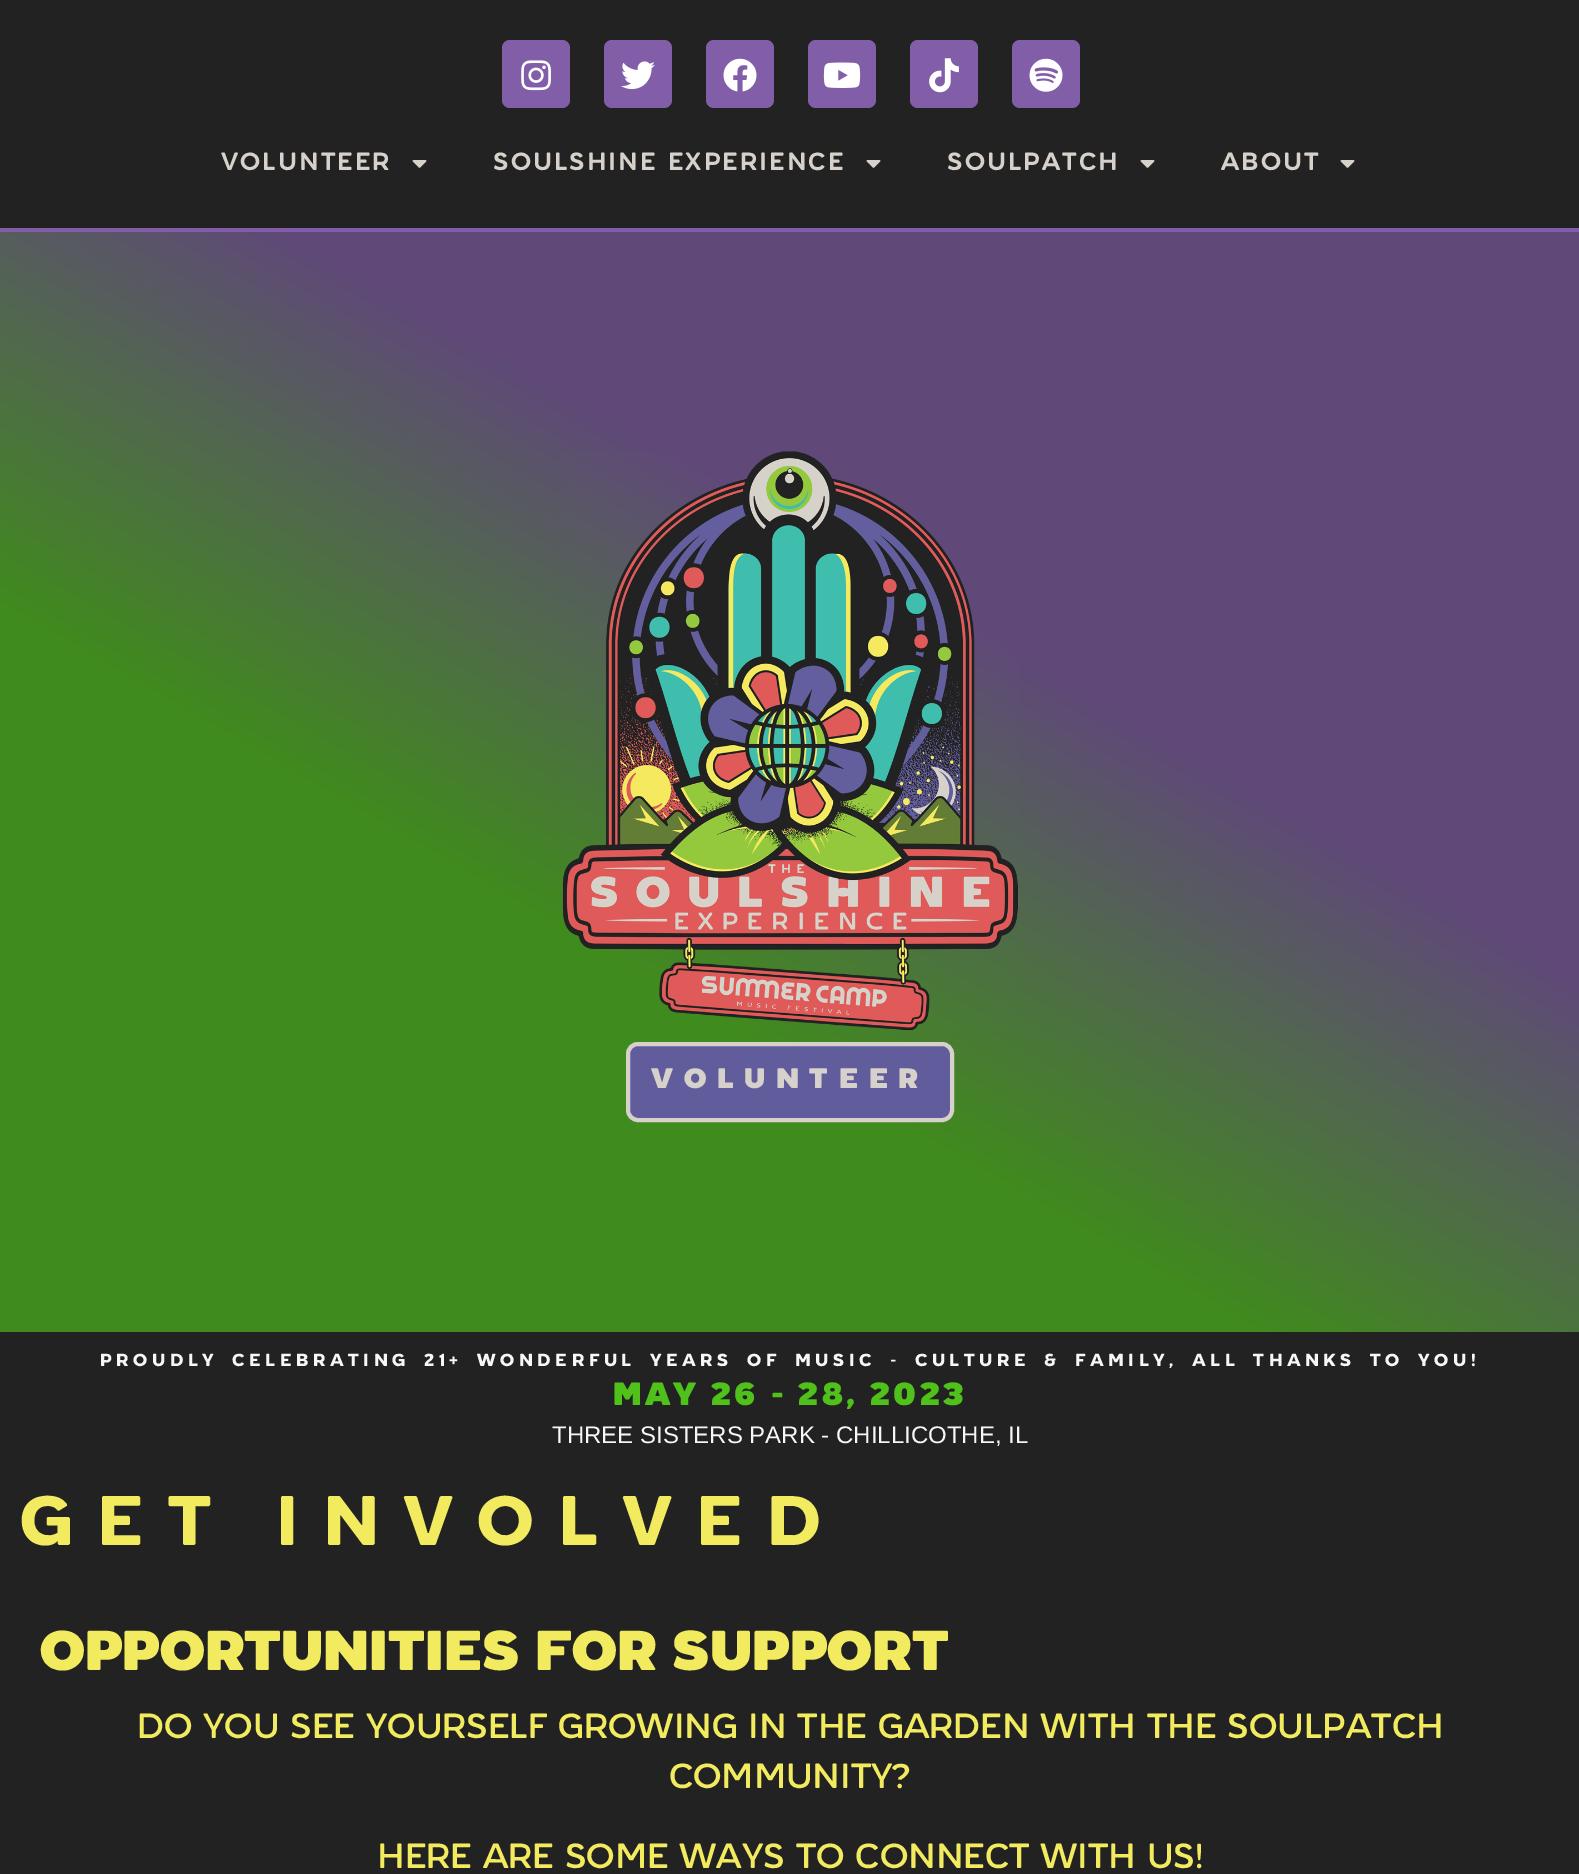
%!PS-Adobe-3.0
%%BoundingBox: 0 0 1579 1874
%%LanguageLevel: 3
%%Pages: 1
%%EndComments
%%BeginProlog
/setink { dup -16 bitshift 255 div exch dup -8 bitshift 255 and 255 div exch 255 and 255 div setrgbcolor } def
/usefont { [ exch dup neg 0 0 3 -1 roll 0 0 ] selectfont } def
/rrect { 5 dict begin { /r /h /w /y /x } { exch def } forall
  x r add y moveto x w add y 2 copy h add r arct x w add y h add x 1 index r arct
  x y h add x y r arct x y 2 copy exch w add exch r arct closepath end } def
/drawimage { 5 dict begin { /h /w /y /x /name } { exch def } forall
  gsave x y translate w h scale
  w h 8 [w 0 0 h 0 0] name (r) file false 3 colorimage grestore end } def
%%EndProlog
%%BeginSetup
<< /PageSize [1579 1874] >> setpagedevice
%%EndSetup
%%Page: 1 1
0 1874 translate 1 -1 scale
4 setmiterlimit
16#222222 setink
0 0 1579 1874 rectfill
16#815EA7 setink
0 228 1579 4 rectfill
502 40 68 68 8 rrect fill
(img1.raw) 521 60 30 31 drawimage
604 40 68 68 8 rrect fill
(img2.raw) 621 61 34 29 drawimage
706 40 68 68 8 rrect fill
(img3.raw) 723 58 34 34 drawimage
808 40 68 68 8 rrect fill
(img4.raw) 823 62 38 26 drawimage
910 40 68 68 8 rrect fill
(img5.raw) 929 58 30 35 drawimage
1012 40 68 68 8 rrect fill
(img6.raw) 1029 58 34 34 drawimage
/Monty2-Bold 24 usefont
16#D6D1CA setink
221 170 moveto 2.75 0 (VOLUNTEER) ashow
(img7.raw) 412 160 15 8 drawimage
493 170 moveto 2.75 0 (SOULSHINE EXPERIENCE) ashow
(img7.raw) 866 160 15 8 drawimage
947 170 moveto 2.75 0 (SOULPATCH) ashow
(img7.raw) 1140 160 15 8 drawimage
1221 170 moveto 2.75 0 (ABOUT) ashow
(img7.raw) 1340 160 15 8 drawimage
gsave 0 232 moveto 1579 232 lineto 1579 1332 lineto 0 1332 lineto closepath clip newpath
<< /ShadingType 2 /ColorSpace /DeviceRGB /Coords [354 1537 1226 27] /Extend [true true] /Function << /FunctionType 3 /Domain [0 1] /Functions [<< /FunctionType 2 /Domain [0 1] /C0 [0.251 0.545 0.114] /C1 [0.251 0.545 0.114] /N 1 >> << /FunctionType 2 /Domain [0 1] /C0 [0.251 0.545 0.114] /C1 [0.376 0.286 0.475] /N 1 >> << /FunctionType 2 /Domain [0 1] /C0 [0.376 0.286 0.475] /C1 [0.376 0.286 0.475] /N 1 >>] /Bounds [0.36 0.63] /Encode [0 1 0 1 0 1] >> >> shfill grestore
(img8.raw) 562 451 457 580 drawimage
16#615D9D setink
628 1044 324 76 10 rrect gsave fill grestore
16#D6D1CA setink
4 setlinewidth
stroke
/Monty-Black 28 usefont
651 1088 moveto 10.75 0 (VOLUNTEER) ashow
/Monty-Bold 17.5 usefont
16#F7F7F7 setink
100 1366 moveto 5.25 0 32 4.5 0 (PROUDLY CELEBRATING 21+ WONDERFUL YEARS OF MUSIC - CULTURE & FAMILY, ALL THANKS TO YOU!) awidthshow
/Monty-Black 32 usefont
16#50C11B setink
613 1405 moveto 3 0 (MAY 26 - 28, 2023) ashow
/LiberationSans-Regular 24 usefont
16#F7F7F7 setink
552 1443 moveto (THREE SISTERS PARK - CHILLICOTHE, IL) show
/Monty-Bold 70 usefont
16#F3EB5F setink
20 1545 moveto 24 0 (GET INVOLVED) ashow
/Monty-Black 56 usefont
40 1670 moveto (OPPORTUNITIES FOR SUPPORT) show
/Monty-Regular 35 usefont
[
    [(DO YOU SEE YOURSELF GROWING IN THE GARDEN WITH THE SOULPATCH) 137 1738]
    [(COMMUNITY?) 669 1788]
    [(HERE ARE SOME WAYS TO CONNECT WITH US!) 377 1868]
] { aload pop moveto show } forall
showpage
%%EOF
